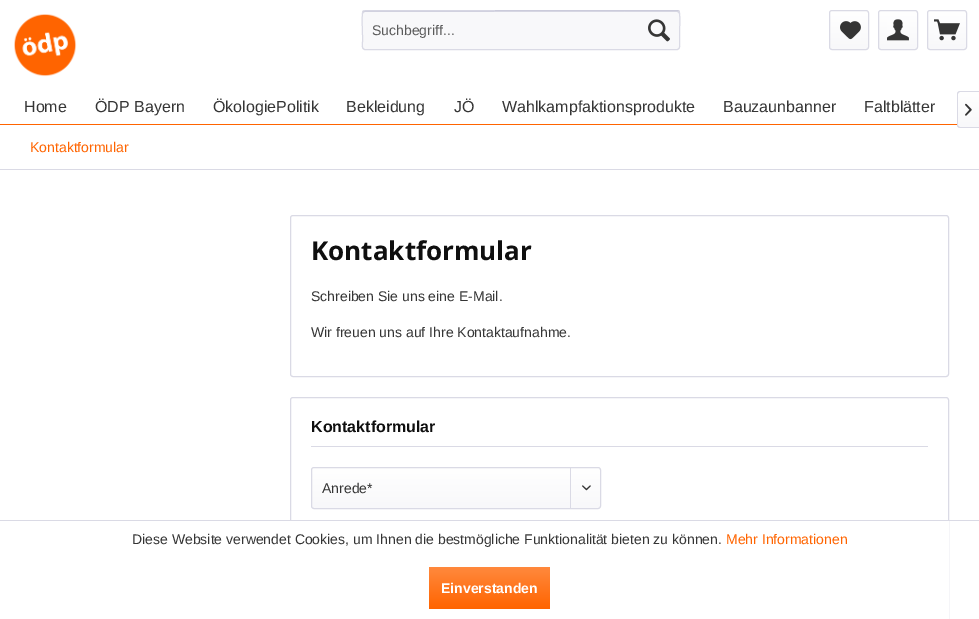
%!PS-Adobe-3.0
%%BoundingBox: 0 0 979 619
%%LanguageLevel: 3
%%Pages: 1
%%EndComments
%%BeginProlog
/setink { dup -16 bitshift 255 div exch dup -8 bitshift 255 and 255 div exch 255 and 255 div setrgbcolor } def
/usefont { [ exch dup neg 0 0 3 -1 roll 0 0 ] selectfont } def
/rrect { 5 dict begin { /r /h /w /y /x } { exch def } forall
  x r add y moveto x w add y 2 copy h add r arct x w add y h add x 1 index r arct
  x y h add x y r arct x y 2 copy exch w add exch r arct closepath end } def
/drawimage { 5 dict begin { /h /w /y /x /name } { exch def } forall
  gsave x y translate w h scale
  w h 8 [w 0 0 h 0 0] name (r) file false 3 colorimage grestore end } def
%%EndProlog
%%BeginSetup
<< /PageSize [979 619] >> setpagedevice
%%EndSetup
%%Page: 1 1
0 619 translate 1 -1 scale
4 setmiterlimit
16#FFFFFF setink
0 0 979 619 rectfill
(img1.raw) 14 14 63 63 drawimage
16#F8F8FA setink
362 10 318 40 3 rrect fill
16#DADAE5 setink
365 12 moveto 677 12 lineto 678 12 679 13 679 14 curveto 679 13 679 11 677 11 curveto 364 11 lineto 363 12 lineto 363 14 lineto 363 13 364 12 365 12 curveto closepath fill
16#CBCBDB setink
363 11 moveto 364 11 lineto 625 10.5 lineto 677 10.5 lineto 679 11 lineto stroke
16#DADAE5 setink
679 11 moveto 680.5 13 679.5 32 679.5 35.5 curveto 679.5 41.5 lineto 679.5 43 681 49.5 677 49.5 curveto 365 49.5 lineto 361 49.5 362.5 43 362.5 41.5 curveto 362.5 35.5 lineto 362.5 32 361.5 13 363 11 curveto stroke
/LiberationSans-Regular 14 usefont
16#5B5B5B setink
372 35 moveto (Suchbegriff...) show
(img2.raw) 648 19 22 23 drawimage
gsave 830 11 38 38 2 rrect clip newpath
<< /ShadingType 2 /ColorSpace /DeviceRGB /Coords [849 11 849 49] /Extend [true true] /Function << /FunctionType 2 /Domain [0 1] /C0 [1 1 1] /C1 [0.973 0.973 0.98] /N 1 >> >> shfill grestore
16#DADAE5 setink
829.5 10.5 39 39 2.5 rrect stroke
(img3.raw) 840 21 21 19 drawimage
gsave 879 11 38 38 2 rrect clip newpath
<< /ShadingType 2 /ColorSpace /DeviceRGB /Coords [898 11 898 49] /Extend [true true] /Function << /FunctionType 2 /Domain [0 1] /C0 [1 1 1] /C1 [0.973 0.973 0.98] /N 1 >> >> shfill grestore
878.5 10.5 39 39 2.5 rrect stroke
(img4.raw) 887 19 22 22 drawimage
gsave 928 11 38 38 2 rrect clip newpath
<< /ShadingType 2 /ColorSpace /DeviceRGB /Coords [947 11 947 49] /Extend [true true] /Function << /FunctionType 2 /Domain [0 1] /C0 [1 1 1] /C1 [0.973 0.973 0.98] /N 1 >> >> shfill grestore
927.5 10.5 39 39 2.5 rrect stroke
(img5.raw) 934 19 26 22 drawimage
16#FF6400 setink
0 124 957 1 rectfill
/LiberationSans-Regular 16 usefont
16#353535 setink
[
    [(Home) 24 112]
    [(ÖDP Bayern) 95 112]
    [(ÖkologiePolitik) 213 112]
    [(Bekleidung) 346 112]
    [(JÖ) 454 112]
    [(Wahlkampfaktionsprodukte) 502 112]
    [(Bauzaunbanner) 723 112]
    [(Faltblätter) 864 112]
] { aload pop moveto show } forall
gsave 960 92 moveto 979 92 lineto 979 127 lineto 960 127 lineto 959 127 958 126 958 125 curveto 958 94 lineto 958 93 959 92 960 92 curveto closepath clip newpath
<< /ShadingType 2 /ColorSpace /DeviceRGB /Coords [969 92 969 127] /Extend [true true] /Function << /FunctionType 2 /Domain [0 1] /C0 [1 1 1] /C1 [0.973 0.973 0.98] /N 1 >> >> shfill grestore
16#DADAE5 setink
960 91 moveto 979 91 lineto 979 128 lineto 960 128 lineto 958.5 128 957 126.5 957 125 curveto 957 94 lineto 957 92.5 958.5 91 960 91 curveto closepath 960 92 moveto 979 92 lineto 979 127 lineto 960 127 lineto 959 127 958 126 958 125 curveto 958 94 lineto 958 93 959 92 960 92 curveto closepath eofill
(img6.raw) 965 103 7 13 drawimage
0 169 979 1 rectfill
/LiberationSans-Regular 14 usefont
16#FF6400 setink
30 152 moveto (Kontaktformular) show
16#DADAE5 setink
290.5 215.5 658 161 2.5 rrect stroke
/OpenSans-Bold 26 usefont
16#0F0F0F setink
311 260 moveto (Kontaktformular) show
/LiberationSans-Regular 14 usefont
16#353535 setink
311 301 moveto (Schreiben Sie uns eine E-Mail.) show
311 337 moveto (Wir freuen uns auf Ihre Kontaktaufnahme.) show
16#DADAE5 setink
290.5 397.5 658 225 2.5 rrect stroke
311 446 617 1 rectfill
/LiberationSans-Bold 16 usefont
16#0F0F0F setink
311 432 moveto (Kontaktformular) show
gsave 312 468 288 40 2 rrect clip newpath
<< /ShadingType 2 /ColorSpace /DeviceRGB /Coords [456 468 456 508] /Extend [true true] /Function << /FunctionType 2 /Domain [0 1] /C0 [1 1 1] /C1 [0.973 0.973 0.98] /N 1 >> >> shfill grestore
16#DADAE5 setink
311.5 467.5 289 41 2.5 rrect stroke
/LiberationSans-Regular 14 usefont
16#353535 setink
322 493 moveto (Anrede*) show
16#DADAE5 setink
570 468 1 40 rectfill
(img7.raw) 582 485 9 6 drawimage
16#FFFFFF setink
290 521 659 98 rectfill
16#DADAE5 setink
0 520 979 1 rectfill
16#353535 setink
132 544 moveto (Diese Website verwendet Cookies, um Ihnen die bestmögliche Funktionalität bieten zu können.) show
16#FF6400 setink
726 544 moveto (Mehr Informationen) show
gsave 429 567 121 42 3 rrect clip newpath
<< /ShadingType 2 /ColorSpace /DeviceRGB /Coords [490 567 490 609] /Extend [true true] /Function << /FunctionType 2 /Domain [0 1] /C0 [1 0.537 0.239] /C1 [1 0.392 0] /N 1 >> >> shfill grestore
/LiberationSans-Bold 14 usefont
16#FFFFFF setink
441 593 moveto (Einverstanden) show
showpage
%%EOF
